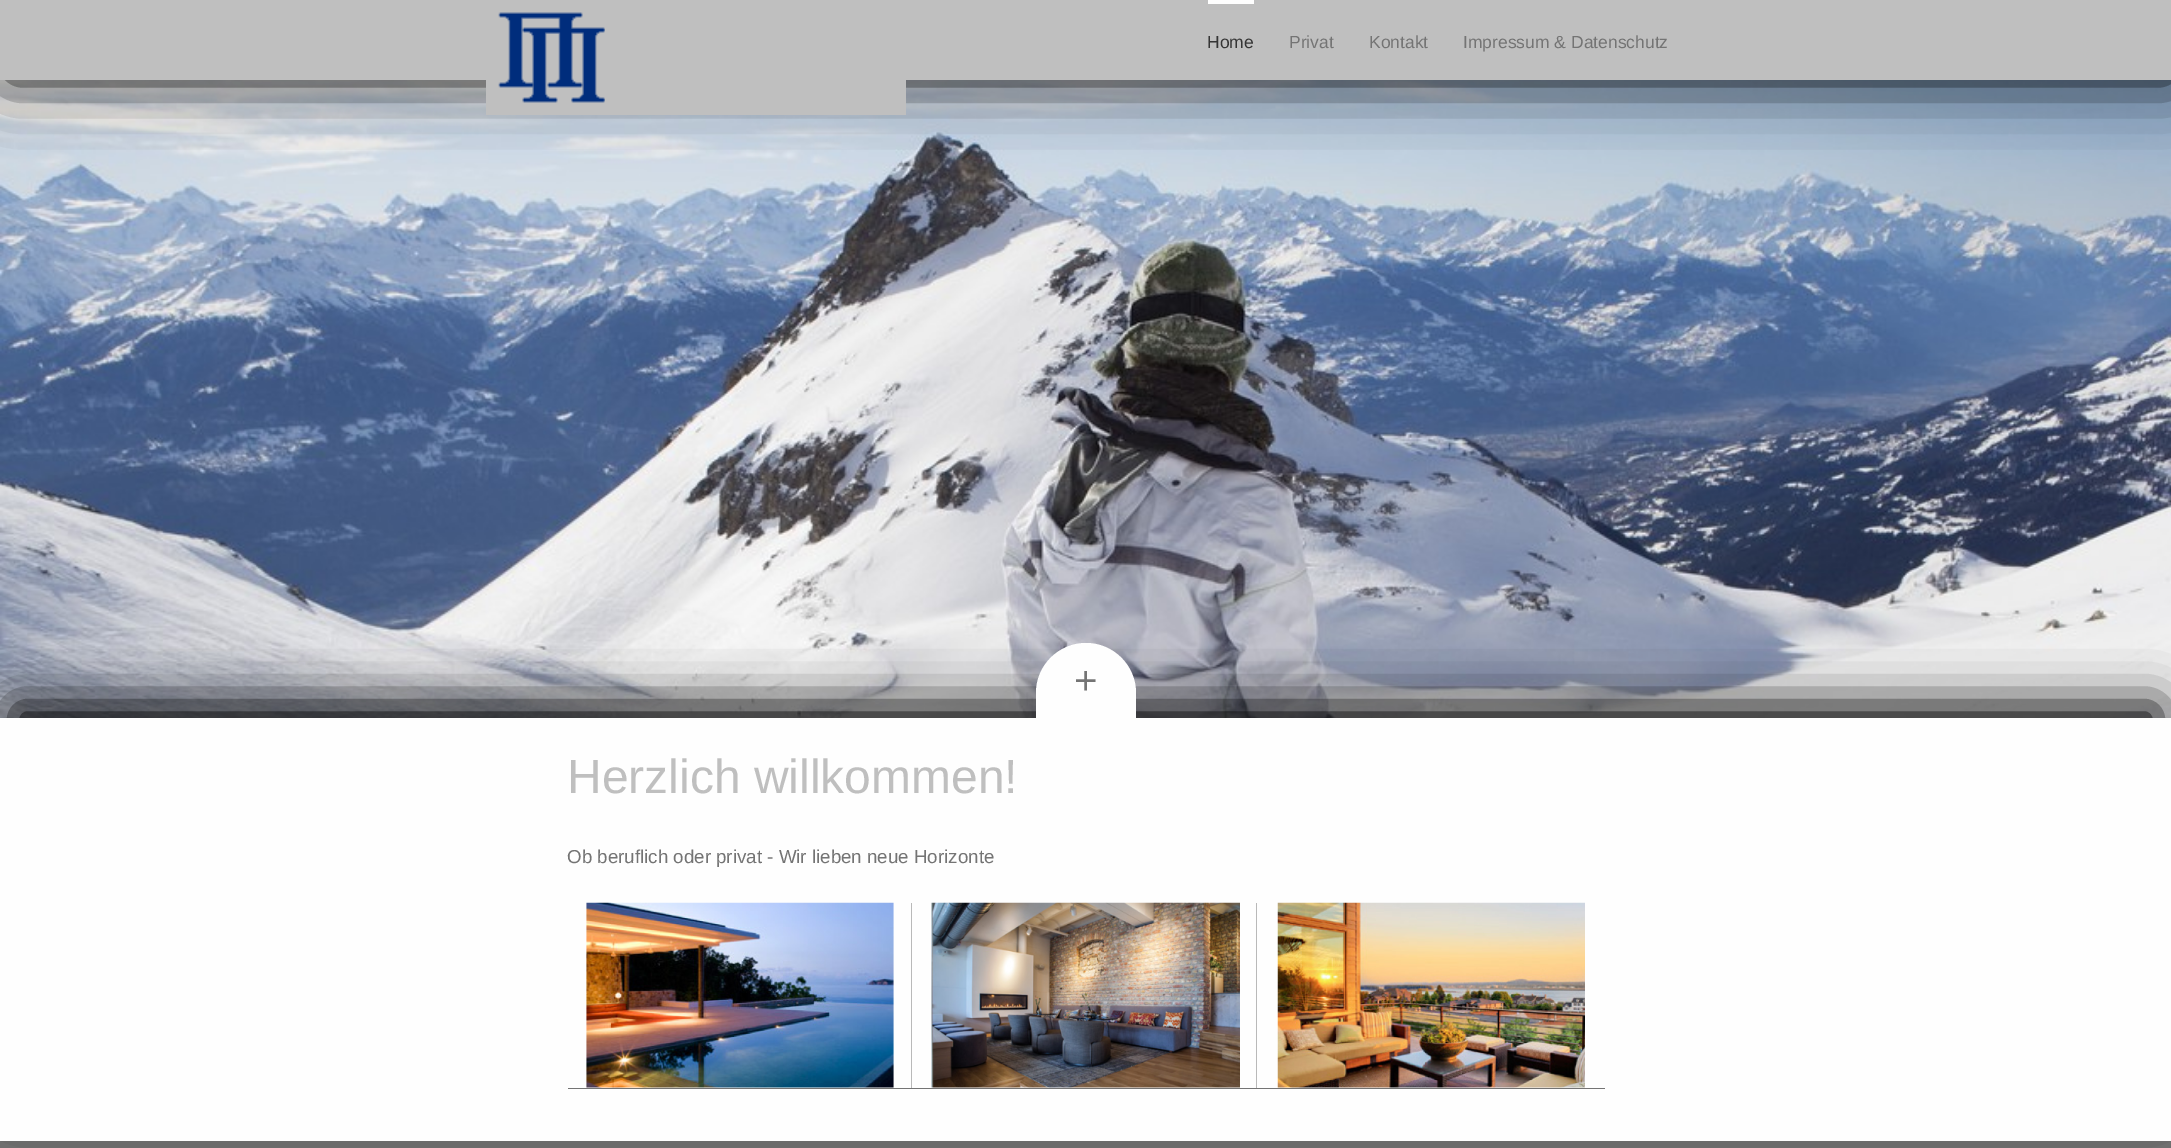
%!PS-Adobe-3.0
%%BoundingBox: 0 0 2171 1148
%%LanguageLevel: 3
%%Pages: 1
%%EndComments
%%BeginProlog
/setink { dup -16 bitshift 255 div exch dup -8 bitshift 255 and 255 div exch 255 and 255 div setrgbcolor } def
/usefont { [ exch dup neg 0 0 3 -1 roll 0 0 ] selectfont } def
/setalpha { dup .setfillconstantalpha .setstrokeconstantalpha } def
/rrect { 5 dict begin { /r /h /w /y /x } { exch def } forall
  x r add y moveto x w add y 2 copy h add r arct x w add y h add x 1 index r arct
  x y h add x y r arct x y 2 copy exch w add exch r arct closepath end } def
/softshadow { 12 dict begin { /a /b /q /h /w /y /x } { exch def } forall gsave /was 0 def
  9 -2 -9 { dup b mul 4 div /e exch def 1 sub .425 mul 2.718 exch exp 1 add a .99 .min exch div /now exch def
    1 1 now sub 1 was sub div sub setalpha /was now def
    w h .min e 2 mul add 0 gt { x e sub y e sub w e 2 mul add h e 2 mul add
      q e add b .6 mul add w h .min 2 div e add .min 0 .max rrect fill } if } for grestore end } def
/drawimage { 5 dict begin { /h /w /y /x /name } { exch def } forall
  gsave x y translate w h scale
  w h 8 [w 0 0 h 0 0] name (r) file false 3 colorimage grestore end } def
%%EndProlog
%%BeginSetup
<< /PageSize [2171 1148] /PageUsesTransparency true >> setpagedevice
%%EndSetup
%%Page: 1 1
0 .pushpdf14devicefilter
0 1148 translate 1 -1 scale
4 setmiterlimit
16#FFFFFF setink
0 0 2171 1148 rectfill
(img1.raw) 0 80 2171 638 drawimage
16#000000 setink
5 0 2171 80 0 31 1 softshadow
16#BFBFBF setink
0 0 2171 80 rectfill
486 80 420 35 rectfill
(img2.raw) 498 12 107 91 drawimage
16#FEFEFE setink
1208 0 46 4 rectfill
/LiberationSans-Regular 17.5 usefont
16#353535 setink
1207 48 moveto (Home) show
16#747474 setink
[
    [(Privat) 1289 48]
    [(Kontakt) 1369 48]
    [(Impressum & Datenschutz) 1463 48]
] { aload pop moveto show } forall
16#737373 setink
0 1141 2171 7 rectfill
16#000000 setink
13 705 2146 399 0 25 1 softshadow
16#FEFEFE setink
0 718 2171 423 rectfill
1086 643 moveto 1113.5 643 1136 665.5 1136 693 curveto 1136 718 lineto 1036 718 lineto 1036 693 lineto 1036 665.5 1058.5 643 1086 643 curveto closepath fill
/LiberationSans-Regular 40 usefont
16#747474 setink
1074 694 moveto (+) show
/LiberationSans-Regular 48 usefont
16#BFBFBF setink
567 793 moveto (Herzlich willkommen!) show
/LiberationSans-Regular 18.75 usefont
16#747474 setink
567 863 moveto (Ob beruflich oder privat - Wir lieben neue Horizonte) show
568 1088 1037 1 rectfill
(img3.raw) 586 902 308 186 drawimage
16#B9B9B9 setink
911 903 1 185 rectfill
(img4.raw) 931 902 309 186 drawimage
1256 903 1 185 rectfill
(img5.raw) 1277 902 308 186 drawimage
.poppdf14devicefilter showpage
%%EOF
